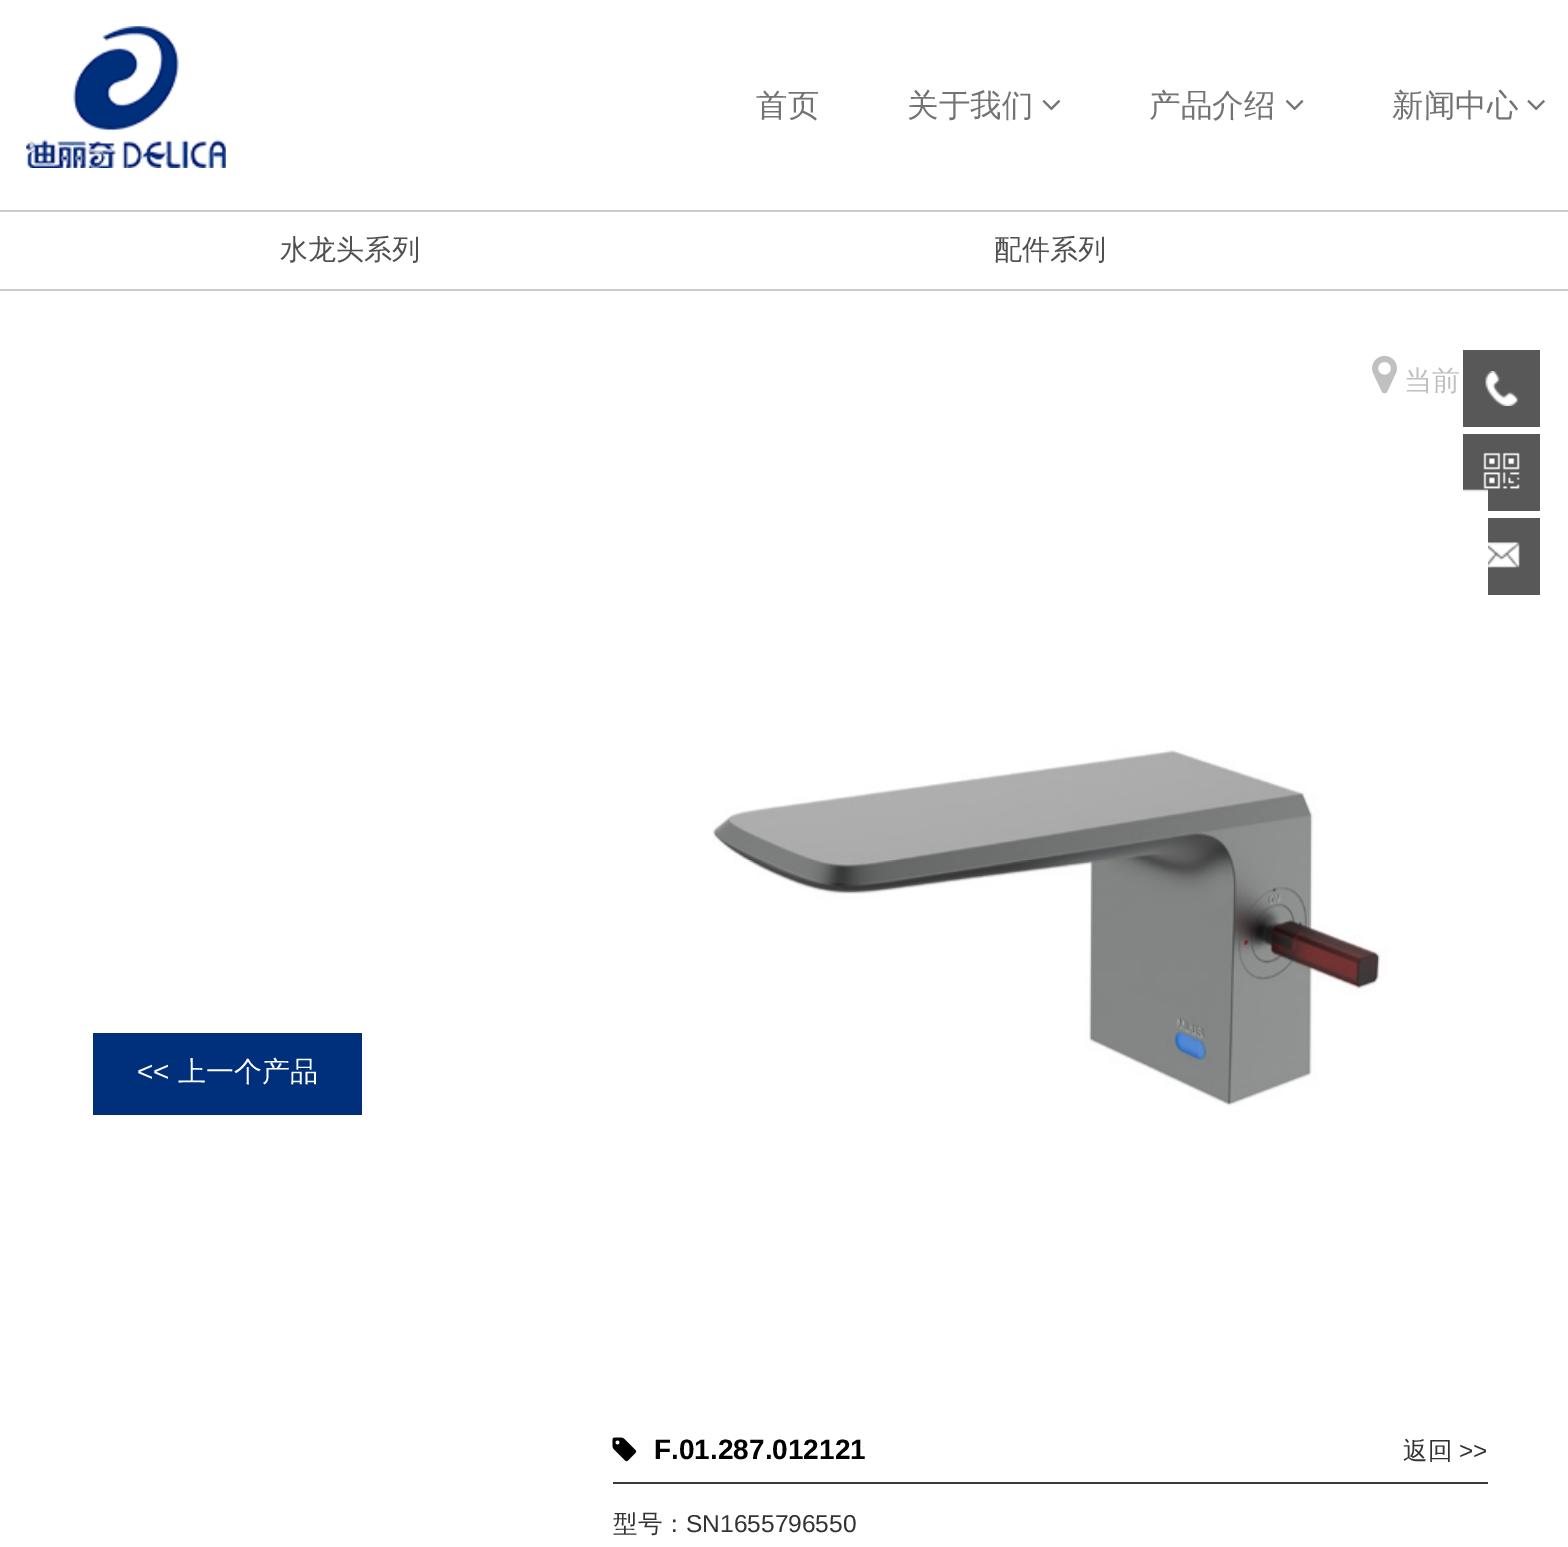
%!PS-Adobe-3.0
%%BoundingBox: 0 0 1568 1547
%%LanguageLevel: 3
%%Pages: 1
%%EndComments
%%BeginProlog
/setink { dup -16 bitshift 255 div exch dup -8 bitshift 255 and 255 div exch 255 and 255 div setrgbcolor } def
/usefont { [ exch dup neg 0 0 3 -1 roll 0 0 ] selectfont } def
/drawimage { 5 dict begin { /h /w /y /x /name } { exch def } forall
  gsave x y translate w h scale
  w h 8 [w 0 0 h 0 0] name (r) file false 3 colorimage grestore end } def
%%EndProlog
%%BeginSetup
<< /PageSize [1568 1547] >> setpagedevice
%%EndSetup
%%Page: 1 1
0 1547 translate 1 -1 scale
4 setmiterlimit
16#FFFFFF setink
0 0 1568 1547 rectfill
16#CCCCCC setink
0 210 1568 2 rectfill
(img1.raw) 26 26 200 142 drawimage
/WenQuanYiZenHei-Medium 31.5 usefont
16#737373 setink
756 116 moveto (首页) show
907 116 moveto (关于我们) show
(img2.raw) 1042 100 19 11 drawimage
1149 116 moveto (产品介绍) show
(img3.raw) 1285 100 19 11 drawimage
1392 116 moveto (新闻中心) show
(img4.raw) 1527 100 18 11 drawimage
16#CCCCCC setink
0 289 1568 2 rectfill
/WenQuanYiZenHei-Medium 28 usefont
16#505050 setink
280 259 moveto (水龙头系列) show
994 259 moveto (配件系列) show
(img5.raw) 1372 355 25 39 drawimage
16#C0C0C0 setink
1404 390 moveto (当前) show
16#002F7B setink
93 1033 269 82 rectfill
/LiberationSans-Regular 28 usefont
16#FFFFFF setink
137 1081 moveto (<<) show
/WenQuanYiZenHei-Medium 28 usefont
178 1081 moveto (上一个产品) show
16#585858 setink
1463 434 77 77 rectfill
(img6.raw) 712 489 776 617 drawimage
16#3A3A3A setink
613 1482 875 2 rectfill
(img7.raw) 612 1437 25 25 drawimage
/LiberationSans-Bold 28 usefont
16#000000 setink
654 1459 moveto (F.01.287.012121) show
/WenQuanYiZenHei-Medium 24.5 usefont
16#333333 setink
1403 1459 moveto (返回) show
/LiberationSans-Regular 24.5 usefont
1459 1459 moveto (>>) show
/WenQuanYiZenHei-Medium 24.5 usefont
613 1532 moveto (型号：) show
/LiberationSans-Regular 24.5 usefont
686 1532 moveto (SN1655796550) show
16#585858 setink
1463 350 77 77 rectfill
(img8.raw) 1485 371 33 35 drawimage
(img9.raw) 1483 452 37 37 drawimage
1488 518 52 77 rectfill
(img10.raw) 1488 542 32 26 drawimage
showpage
%%EOF
